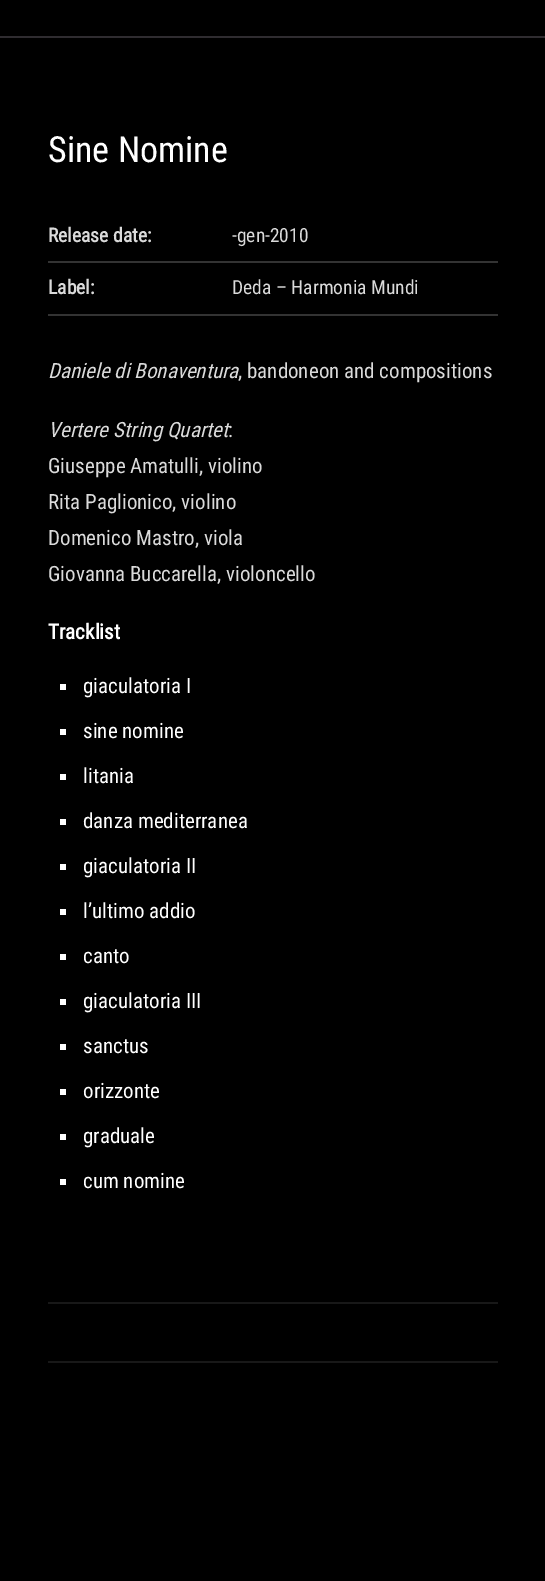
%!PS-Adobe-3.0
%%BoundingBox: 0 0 545 1581
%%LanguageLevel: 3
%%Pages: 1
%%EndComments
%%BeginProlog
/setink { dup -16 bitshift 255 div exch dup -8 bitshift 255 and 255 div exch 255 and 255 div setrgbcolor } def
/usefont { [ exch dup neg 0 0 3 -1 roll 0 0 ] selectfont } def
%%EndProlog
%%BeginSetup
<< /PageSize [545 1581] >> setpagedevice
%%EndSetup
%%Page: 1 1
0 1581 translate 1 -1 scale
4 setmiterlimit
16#000000 setink
0 0 545 1581 rectfill
16#2F2C30 setink
0 36 545 2 rectfill
/RobotoCondensed-Regular 36 usefont
16#FFFFFF setink
48 162 moveto (Sine Nomine) show
16#333333 setink
48 261 450 2 rectfill
/RobotoCondensed-Bold 19.5 usefont
16#DADADA setink
48 242 moveto (Release date:) show
/RobotoCondensed-Regular 19.5 usefont
232 242 moveto (-gen-2010) show
16#333333 setink
48 314 450 2 rectfill
/RobotoCondensed-Bold 19.5 usefont
16#DADADA setink
48 294 moveto (Label:) show
/RobotoCondensed-Regular 19.5 usefont
232 294 moveto (Deda – Harmonia Mundi) show
/RobotoCondensed-Italic 21 usefont
48 378 moveto (Daniele di Bonaventura) show
/RobotoCondensed-Regular 21 usefont
238 378 moveto (, bandoneon and compositions) show
/RobotoCondensed-Italic 21 usefont
48 437 moveto (Vertere String Quartet) show
/RobotoCondensed-Regular 21 usefont
[
    [(:) 228 437]
    [(Giuseppe Amatulli, violino) 48 473]
    [(Rita Paglionico, violino) 48 509]
    [(Domenico Mastro, viola) 48 545]
    [(Giovanna Buccarella, violoncello) 48 581]
] { aload pop moveto show } forall
/RobotoCondensed-Bold 21 usefont
16#FFFFFF setink
48 639 moveto (Tracklist) show
60 684 6 6 rectfill
/RobotoCondensed-Regular 21 usefont
83 693 moveto (giaculatoria I) show
60 729 6 6 rectfill
83 738 moveto (sine nomine) show
60 774 6 6 rectfill
83 783 moveto (litania) show
60 819 6 6 rectfill
83 828 moveto (danza mediterranea) show
60 864 6 6 rectfill
83 873 moveto (giaculatoria II) show
60 909 6 6 rectfill
83 918 moveto (l’ultimo addio) show
60 954 6 6 rectfill
83 963 moveto (canto) show
60 999 6 6 rectfill
83 1008 moveto (giaculatoria III) show
60 1044 6 6 rectfill
83 1053 moveto (sanctus) show
60 1089 6 6 rectfill
83 1098 moveto (orizzonte) show
60 1134 6 6 rectfill
83 1143 moveto (graduale) show
60 1179 6 6 rectfill
83 1188 moveto (cum nomine) show
16#181818 setink
48 1302 450 2 rectfill
48 1361 450 2 rectfill
showpage
%%EOF
